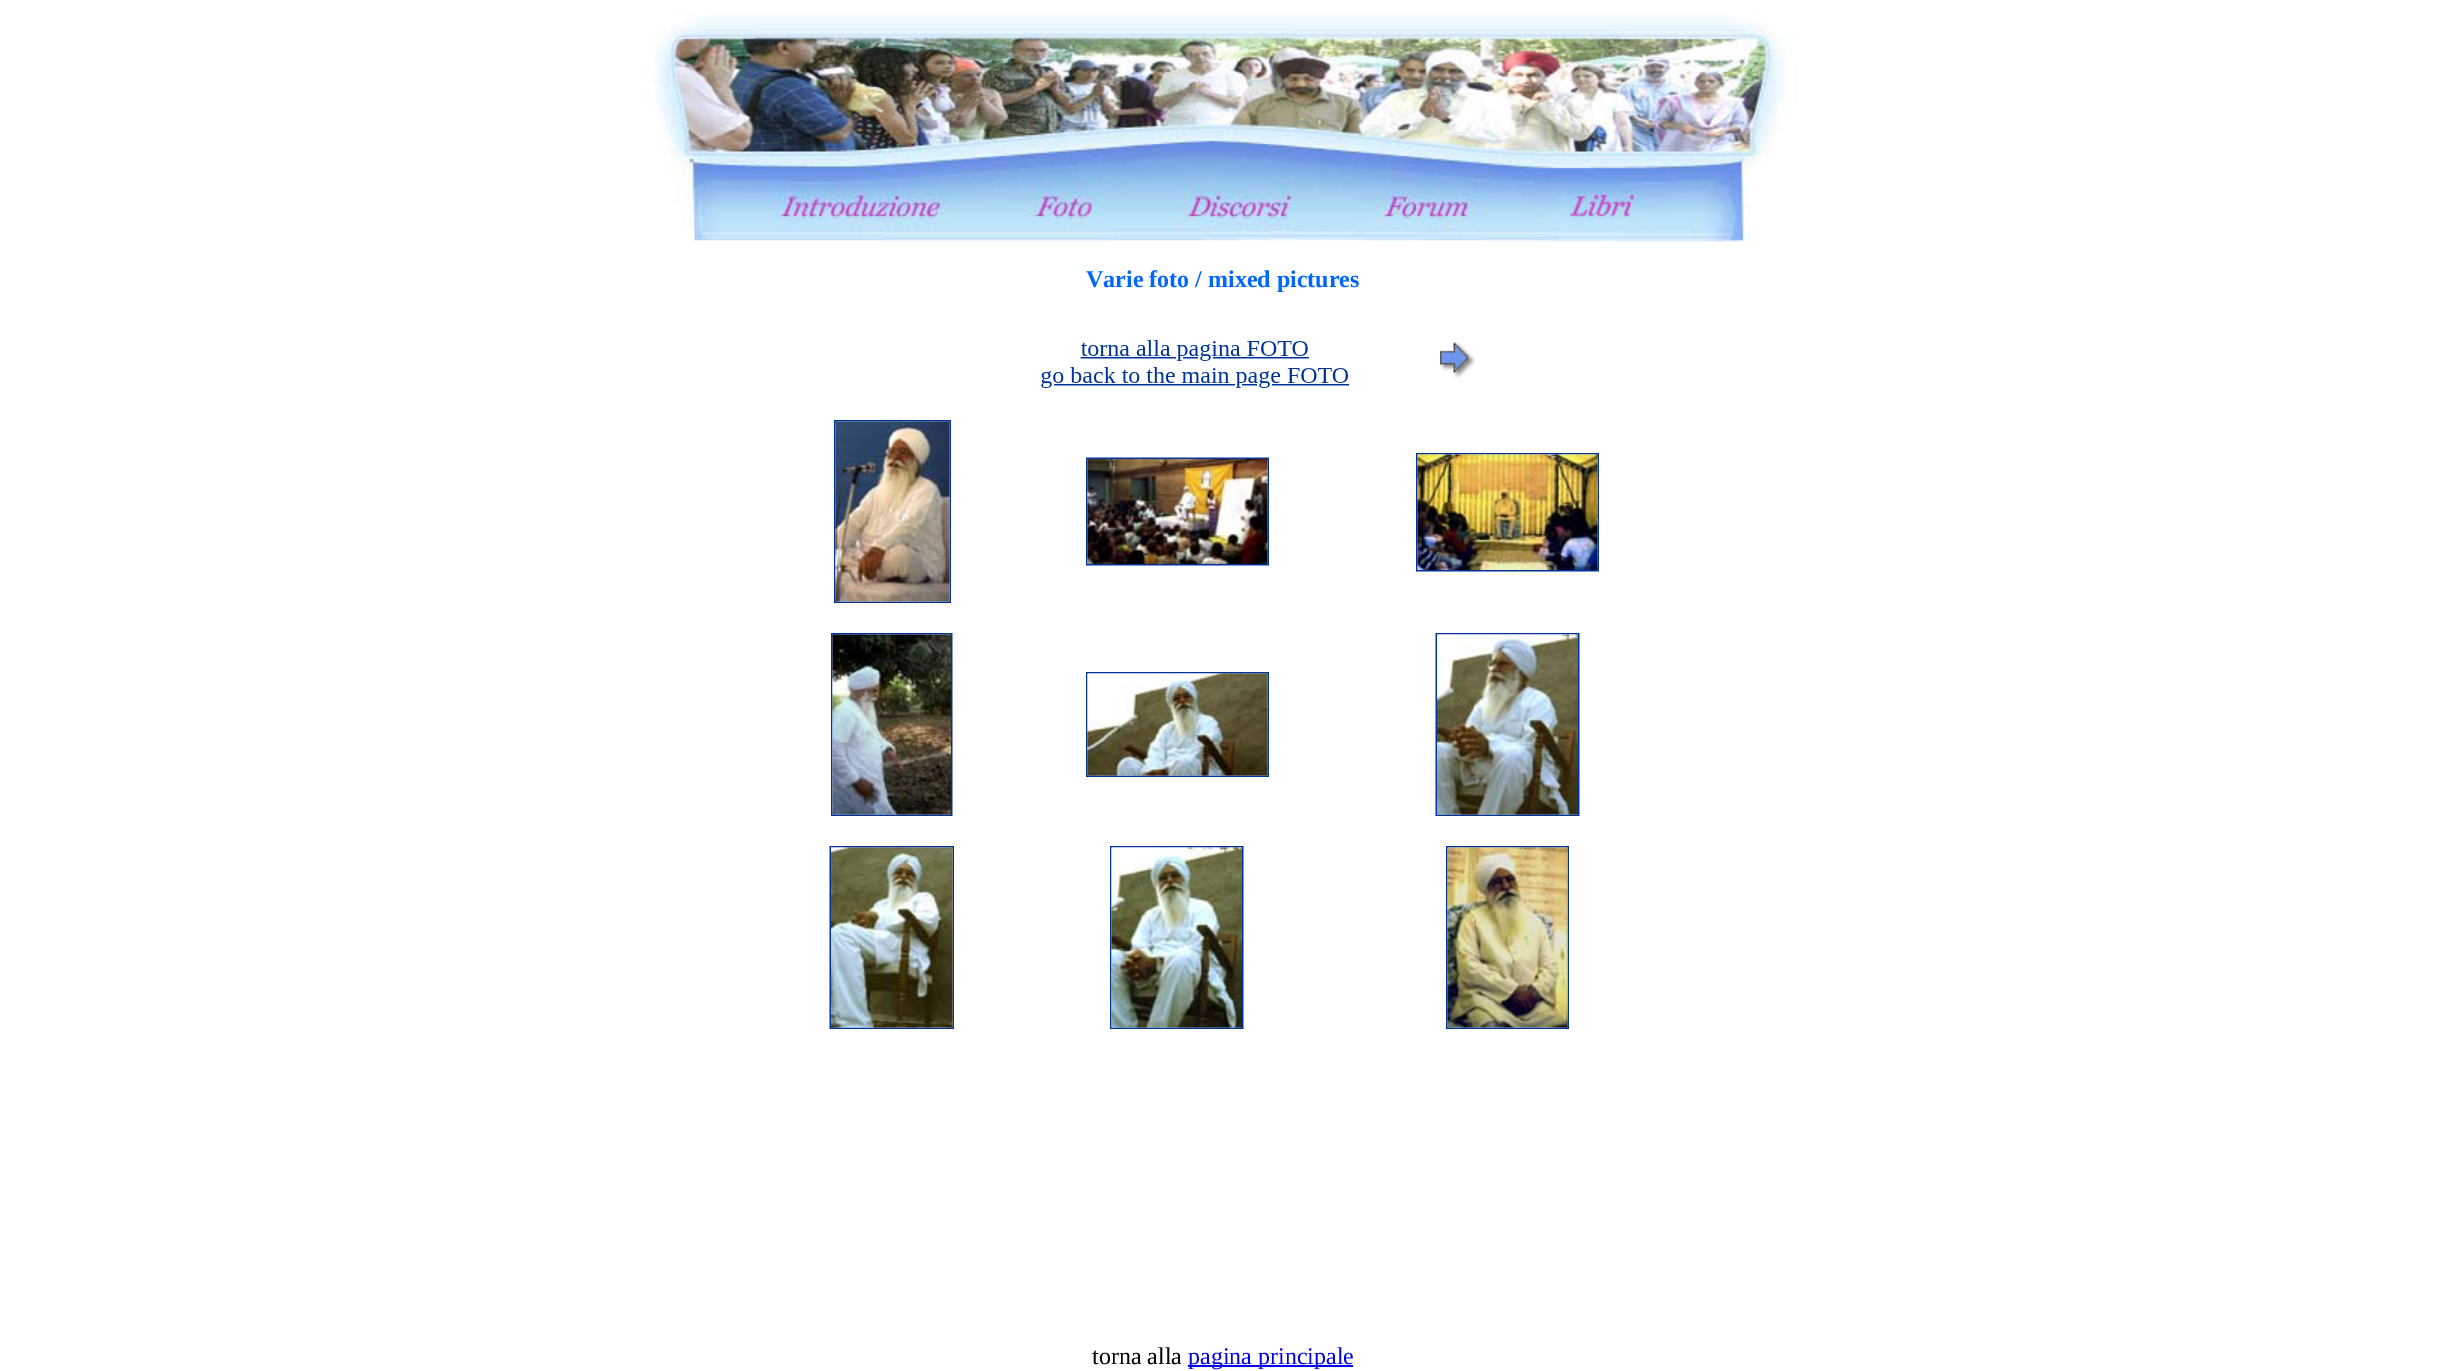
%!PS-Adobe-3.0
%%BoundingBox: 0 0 2445 1371
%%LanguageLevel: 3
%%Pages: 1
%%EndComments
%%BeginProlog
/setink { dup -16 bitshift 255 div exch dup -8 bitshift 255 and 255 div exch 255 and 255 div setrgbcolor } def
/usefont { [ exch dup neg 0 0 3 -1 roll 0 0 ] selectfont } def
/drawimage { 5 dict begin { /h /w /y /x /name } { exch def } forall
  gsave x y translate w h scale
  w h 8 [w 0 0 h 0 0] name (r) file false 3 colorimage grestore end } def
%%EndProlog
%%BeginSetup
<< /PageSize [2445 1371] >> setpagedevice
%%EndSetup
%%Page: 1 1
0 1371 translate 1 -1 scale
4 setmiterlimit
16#FFFFFF setink
0 0 2445 1371 rectfill
(img1.raw) 647 12 1151 230 drawimage
/LiberationSerif-Bold 24 usefont
16#0066FF setink
1086 287 moveto (Varie foto / mixed pictures) show
(img2.raw) 829 340 770 689 drawimage
/LiberationSerif-Regular 24 usefont
16#000000 setink
1092 1364 moveto (torna alla) show
16#0000EE setink
1188 1365 165 2 rectfill
1188 1364 moveto (pagina principale) show
showpage
%%EOF
